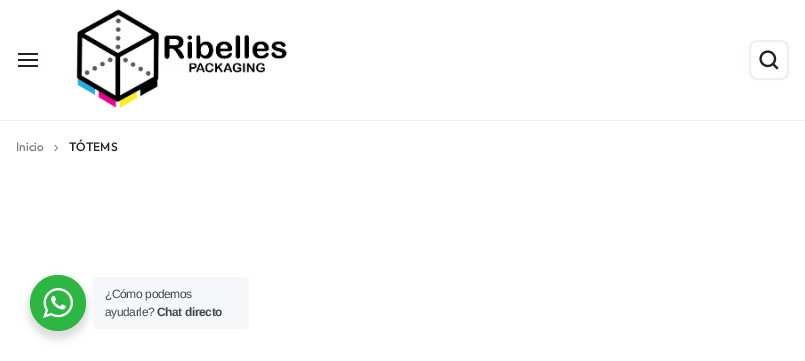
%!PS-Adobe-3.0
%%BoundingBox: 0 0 805 361
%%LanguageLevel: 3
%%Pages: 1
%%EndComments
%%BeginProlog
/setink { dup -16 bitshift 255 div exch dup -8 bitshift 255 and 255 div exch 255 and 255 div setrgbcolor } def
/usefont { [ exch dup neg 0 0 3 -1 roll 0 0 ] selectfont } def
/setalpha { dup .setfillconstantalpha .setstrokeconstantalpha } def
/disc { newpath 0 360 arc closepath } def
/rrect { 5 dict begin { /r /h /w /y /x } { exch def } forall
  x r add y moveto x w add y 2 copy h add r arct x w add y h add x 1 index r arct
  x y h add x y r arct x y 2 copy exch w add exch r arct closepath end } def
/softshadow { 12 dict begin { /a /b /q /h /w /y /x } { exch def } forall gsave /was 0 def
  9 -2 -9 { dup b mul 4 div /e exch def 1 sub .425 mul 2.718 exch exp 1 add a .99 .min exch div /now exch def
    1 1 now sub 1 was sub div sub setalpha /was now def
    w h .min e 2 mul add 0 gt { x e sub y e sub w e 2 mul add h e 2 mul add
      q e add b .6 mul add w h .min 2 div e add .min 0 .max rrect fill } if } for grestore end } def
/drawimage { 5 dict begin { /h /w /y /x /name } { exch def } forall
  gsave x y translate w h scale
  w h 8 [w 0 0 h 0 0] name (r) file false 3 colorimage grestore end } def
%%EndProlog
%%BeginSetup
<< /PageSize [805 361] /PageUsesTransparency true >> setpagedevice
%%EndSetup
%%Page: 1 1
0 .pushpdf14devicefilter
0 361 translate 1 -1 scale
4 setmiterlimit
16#FFFFFF setink
0 0 805 361 rectfill
[
    [0 120 805 1 16#ECF0F4]
    [18 53 20 2 16#1D2128]
    [18 59 20 2 16#1D2128]
    [18 65 20 2 16#1D2128]
] { aload pop setink rectfill } forall
(img1.raw) 76 9 211 99 drawimage
16#ECF0F4 setink
2 setlinewidth
750 41 38 38 7 rrect stroke
(img2.raw) 759 50 20 20 drawimage
/Outfit-Medium 12 usefont
16#7C818B setink
16 151 moveto (Inicio) show
(img3.raw) 54 144 4 8 drawimage
16#1D2128 setink
69 151 moveto (TÓTEMS) show
16#000000 setink
28 279 60 60 30 4 0.14 softshadow
16#2DB742 setink
58 303 28 disc fill
(img4.raw) 43 288 30 30 drawimage
16#F5F7F9 setink
93 277 156 52 4 rrect fill
/LiberationSans-Regular 12 usefont
16#43474E setink
105 298 moveto -0.4 0 (¿Cómo podemos) ashow
105 316 moveto -0.4 0 (ayudarle?) ashow
/LiberationSans-Bold 12 usefont
157 316 moveto -0.4 0 (Chat directo) ashow
.poppdf14devicefilter showpage
%%EOF
